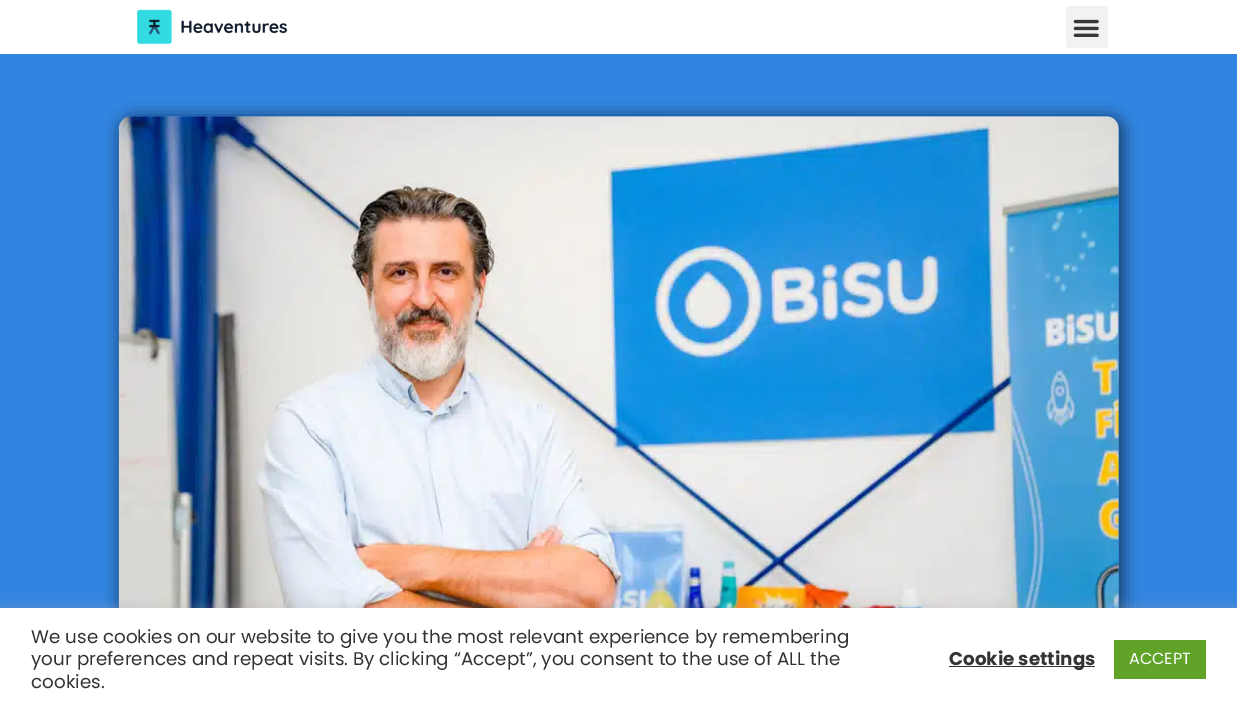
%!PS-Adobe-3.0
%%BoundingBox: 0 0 1237 710
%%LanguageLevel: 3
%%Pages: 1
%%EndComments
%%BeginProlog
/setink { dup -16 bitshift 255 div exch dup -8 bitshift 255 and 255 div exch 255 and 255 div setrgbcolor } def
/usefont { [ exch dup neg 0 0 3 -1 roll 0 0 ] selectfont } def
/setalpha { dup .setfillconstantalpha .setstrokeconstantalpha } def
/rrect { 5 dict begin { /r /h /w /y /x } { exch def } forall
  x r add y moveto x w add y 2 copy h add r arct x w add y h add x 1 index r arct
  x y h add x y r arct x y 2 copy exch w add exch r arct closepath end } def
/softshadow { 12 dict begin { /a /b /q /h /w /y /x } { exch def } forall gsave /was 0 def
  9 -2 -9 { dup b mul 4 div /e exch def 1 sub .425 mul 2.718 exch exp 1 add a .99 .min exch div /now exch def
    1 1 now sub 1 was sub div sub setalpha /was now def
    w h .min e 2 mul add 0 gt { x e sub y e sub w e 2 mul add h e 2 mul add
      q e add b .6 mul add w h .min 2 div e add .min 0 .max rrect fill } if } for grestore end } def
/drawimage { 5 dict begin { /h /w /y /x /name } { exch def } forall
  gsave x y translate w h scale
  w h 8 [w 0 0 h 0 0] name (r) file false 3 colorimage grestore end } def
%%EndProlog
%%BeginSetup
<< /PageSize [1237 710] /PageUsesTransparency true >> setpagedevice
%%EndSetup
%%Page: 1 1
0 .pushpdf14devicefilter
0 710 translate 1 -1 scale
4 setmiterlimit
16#FFFFFF setink
0 0 1237 710 rectfill
(img1.raw) 137 9 151 35 drawimage
16#F2F2F2 setink
1066 6 42 42 4 rrect fill
(img2.raw) 1073 19 26 18 drawimage
16#3185E0 setink
0 54 1237 554 rectfill
16#000000 setink
119 116 1005 568 15 7.5 0.5 softshadow
(img3.raw) 118 116 1001 492 drawimage
16#ACABAB setink
0 606 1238 103 0 6 0.3 softshadow
16#FFFFFF setink
0 608 1237 102 rectfill
/Poppins-Regular 18.35 usefont
16#333333 setink
[
    [(We use cookies on our website to give you the most relevant experience by remembering) 31 643]
    [(your preferences and repeat visits. By clicking “Accept”, you consent to the use of ALL the) 31 665]
    [(cookies.) 31 688]
] { aload pop moveto show } forall
949 666 146 1 rectfill
/Poppins-Bold 18.35 usefont
949 665 moveto (Cookie settings) show
16#61A229 setink
1114 640 92 39 rectfill
/Poppins-Regular 16 usefont
16#FFFFFF setink
1129 664 moveto (ACCEPT) show
.poppdf14devicefilter showpage
%%EOF
